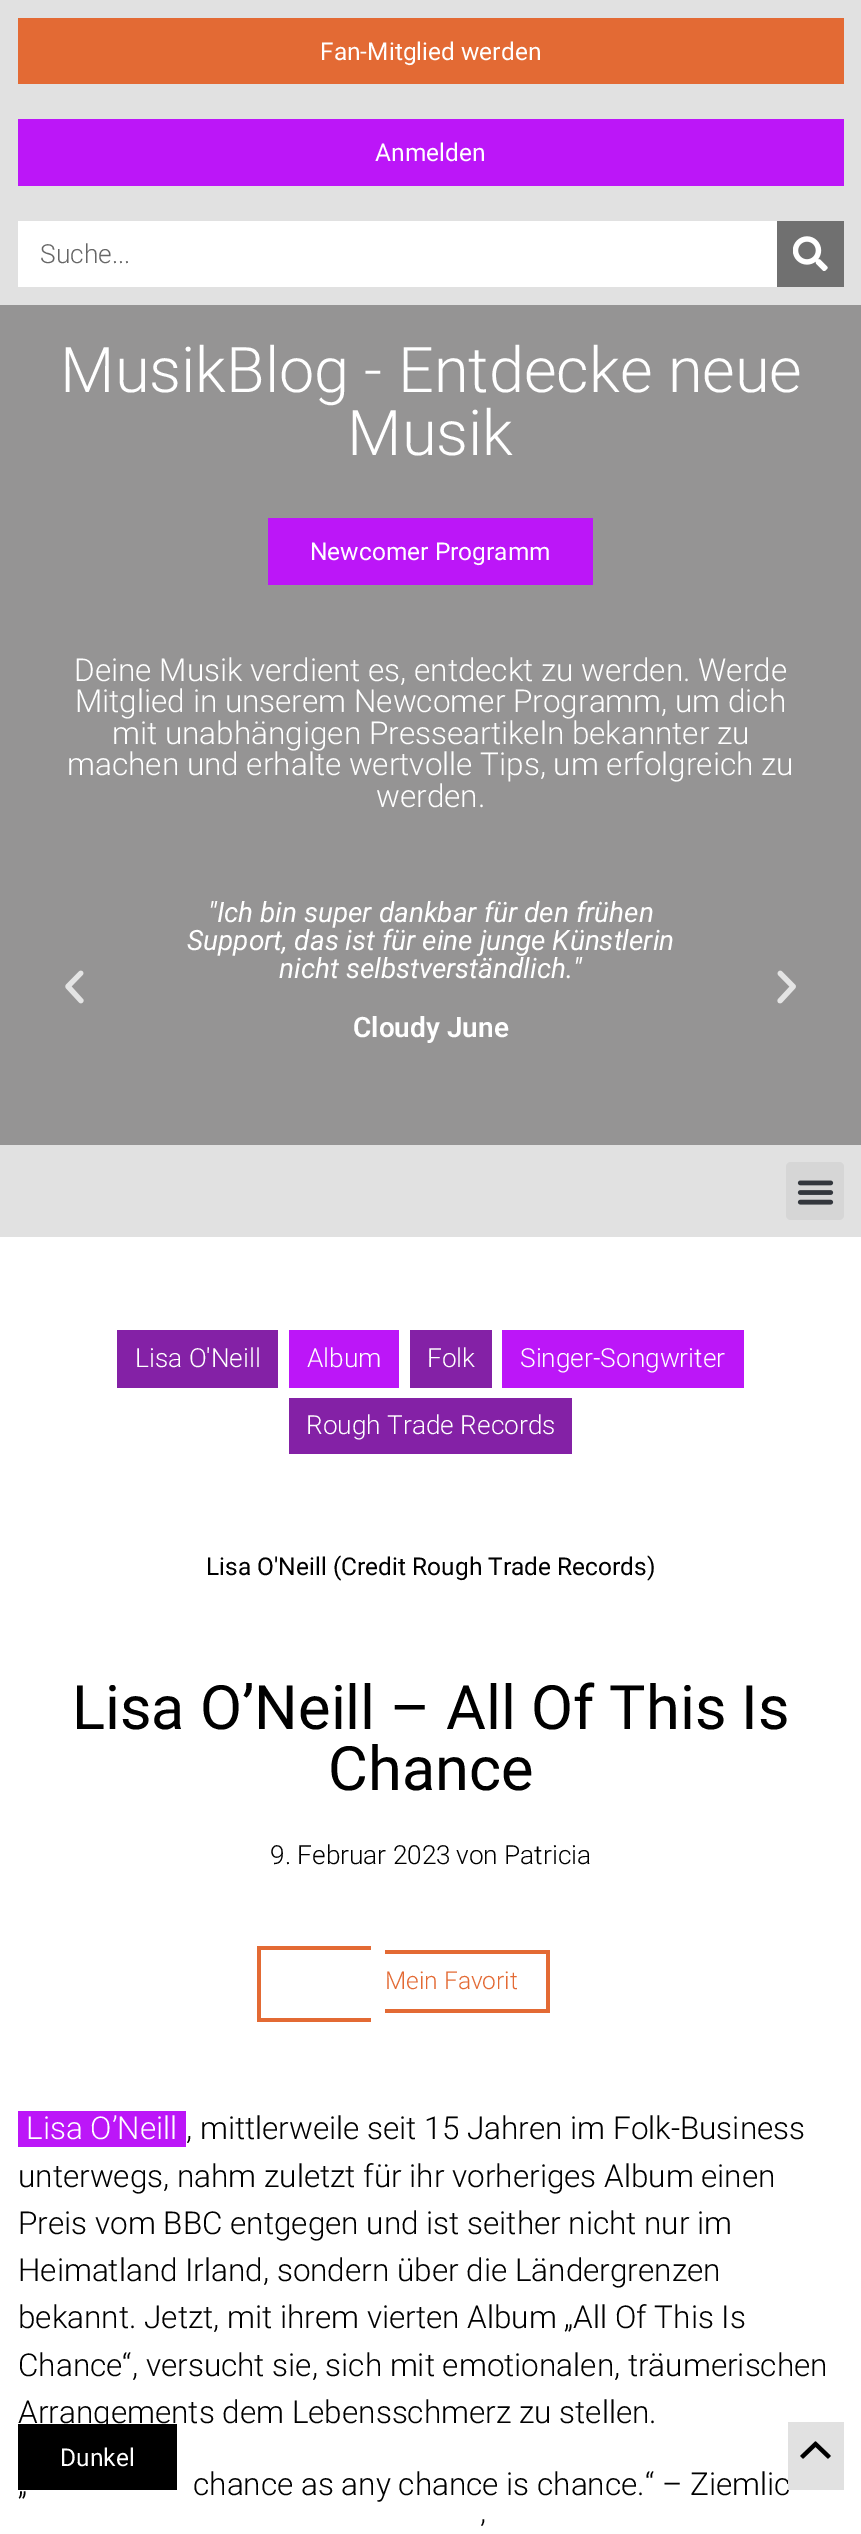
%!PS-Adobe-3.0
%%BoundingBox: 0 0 861 2534
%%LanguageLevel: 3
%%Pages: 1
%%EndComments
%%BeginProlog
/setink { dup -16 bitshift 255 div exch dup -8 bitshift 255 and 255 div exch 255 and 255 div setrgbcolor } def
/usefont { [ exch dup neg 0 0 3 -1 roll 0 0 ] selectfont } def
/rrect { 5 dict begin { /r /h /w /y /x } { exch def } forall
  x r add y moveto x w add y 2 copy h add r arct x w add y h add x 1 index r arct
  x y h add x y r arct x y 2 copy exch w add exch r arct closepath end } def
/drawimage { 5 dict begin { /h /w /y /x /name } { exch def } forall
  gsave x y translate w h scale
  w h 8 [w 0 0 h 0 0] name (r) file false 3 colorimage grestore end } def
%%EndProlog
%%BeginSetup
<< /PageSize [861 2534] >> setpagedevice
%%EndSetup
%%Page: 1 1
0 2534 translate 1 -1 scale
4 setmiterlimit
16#FFFFFF setink
0 0 861 2534 rectfill
16#E1E1E1 setink
0 0 861 305 rectfill
16#E36A34 setink
18 18 826 66 rectfill
/Roboto-Regular 24.5 usefont
16#FFFFFF setink
320 60 moveto (Fan-Mitglied werden) show
16#BC16F8 setink
18 119 826 67 rectfill
16#FFFFFF setink
375 161 moveto (Anmelden) show
18 221 759 66 rectfill
/Roboto-Light 26.25 usefont
16#666666 setink
40 263 moveto (Suche...) show
16#707070 setink
777 221 67 66 rectfill
(img1.raw) 793 236 35 35 drawimage
16#959494 setink
0 305 861 840 rectfill
/Roboto-Light 63 usefont
16#FFFFFF setink
60 392 moveto (MusikBlog - Entdecke neue) show
347 455 moveto (Musik) show
16#BC16F8 setink
268 518 325 67 rectfill
/Roboto-Regular 24.5 usefont
16#FFFFFF setink
310 560 moveto (Newcomer Programm) show
/Roboto-Light 31.5 usefont
[
    [(Deine Musik verdient es, entdeckt zu werden. Werde) 74 681]
    [(Mitglied in unserem Newcomer Programm, um dich) 75 712]
    [(mit unabhängigen Presseartikeln bekannter zu) 112 744]
    [(machen und erhalte wertvolle Tips, um erfolgreich zu) 67 775]
    [(werden.) 376 807]
] { aload pop moveto show } forall
(img2.raw) 65 970 19 34 drawimage
/Roboto-Italic 28 usefont
[
    [("Ich bin super dankbar für den frühen) 208 922]
    [(Support, das ist für eine junge Künstlerin) 187 950]
    [(nicht selbstverständlich.") 279 978]
] { aload pop moveto show } forall
/Roboto-SemiBold 28 usefont
353 1037 moveto (Cloudy June) show
(img3.raw) 777 970 19 34 drawimage
16#E1E1E1 setink
0 1145 861 92 rectfill
16#D6D6D6 setink
786 1162 58 58 5 rrect fill
(img4.raw) 797 1180 37 25 drawimage
16#8421A6 setink
117 1330 161 58 rectfill
/Roboto-Light 26.25 usefont
16#FFFFFF setink
135 1367 moveto (Lisa O'Neill) show
16#BC16F8 setink
289 1330 110 58 rectfill
16#FFFFFF setink
307 1367 moveto (Album) show
16#8421A6 setink
410 1330 82 58 rectfill
16#FFFFFF setink
427 1367 moveto (Folk) show
16#BC16F8 setink
502 1330 242 58 rectfill
16#FFFFFF setink
520 1367 moveto (Singer-Songwriter) show
16#8421A6 setink
289 1398 283 56 rectfill
16#FFFFFF setink
306 1434 moveto (Rough Trade Records) show
/Roboto-Regular 24.5 usefont
16#000000 setink
206 1575 moveto (Lisa O'Neill \(Credit Rough Trade Records\)) show
/Roboto-Regular 61.25 usefont
72 1729 moveto (Lisa O’Neill – All Of This Is) show
328 1790 moveto (Chance) show
/Roboto-Light 26.25 usefont
270 1864 moveto (9. Februar 2023) show
456 1864 moveto (von Patricia) show
/Roboto-Light 24.5 usefont
16#E36A34 setink
385 1989 moveto (Mein Favorit) show
[
    [257 1946 114 4 16#E36A34]
    [257 2018 114 4 16#E36A34]
    [257 1946 4 75 16#E36A34]
    [385 1950 165 4 16#E36A34]
    [546 1950 4 63 16#E36A34]
    [385 2009 165 4 16#E36A34]
    [18 2111 168 36 16#BC16F8]
] { aload pop setink rectfill } forall
/Roboto-Light 31.5 usefont
16#FFFFFF setink
26 2139 moveto (Lisa O’Neill) show
16#000000 setink
[
    [(, mittlerweile seit 15 Jahren im Folk-Business) 186 2139]
    [(unterwegs, nahm zuletzt für ihr vorheriges Album einen) 18 2187]
    [(Preis vom BBC entgegen und ist seither nicht nur im) 18 2234]
    [(Heimatland Irland, sondern über die Ländergrenzen) 18 2281]
    [(bekannt. Jetzt, mit ihrem vierten Album „All Of This Is) 18 2328]
    [(Chance“, versucht sie, sich mit emotionalen, träumerischen) 18 2376]
    [(Arrangements dem Lebensschmerz zu stellen.) 18 2423]
    [(„) 18 2495]
    [(chance as any chance is chance.“ – Ziemlic) 193 2495]
    [(’) 480 2543]
] { aload pop moveto show } forall
18 2424 159 66 rectfill
/Roboto-Regular 24.5 usefont
16#FFFFFF setink
60 2466 moveto (Dunkel) show
16#E1E1E1 setink
788 2422 56 68 rectfill
(img5.raw) 800 2441 31 18 drawimage
showpage
%%EOF
